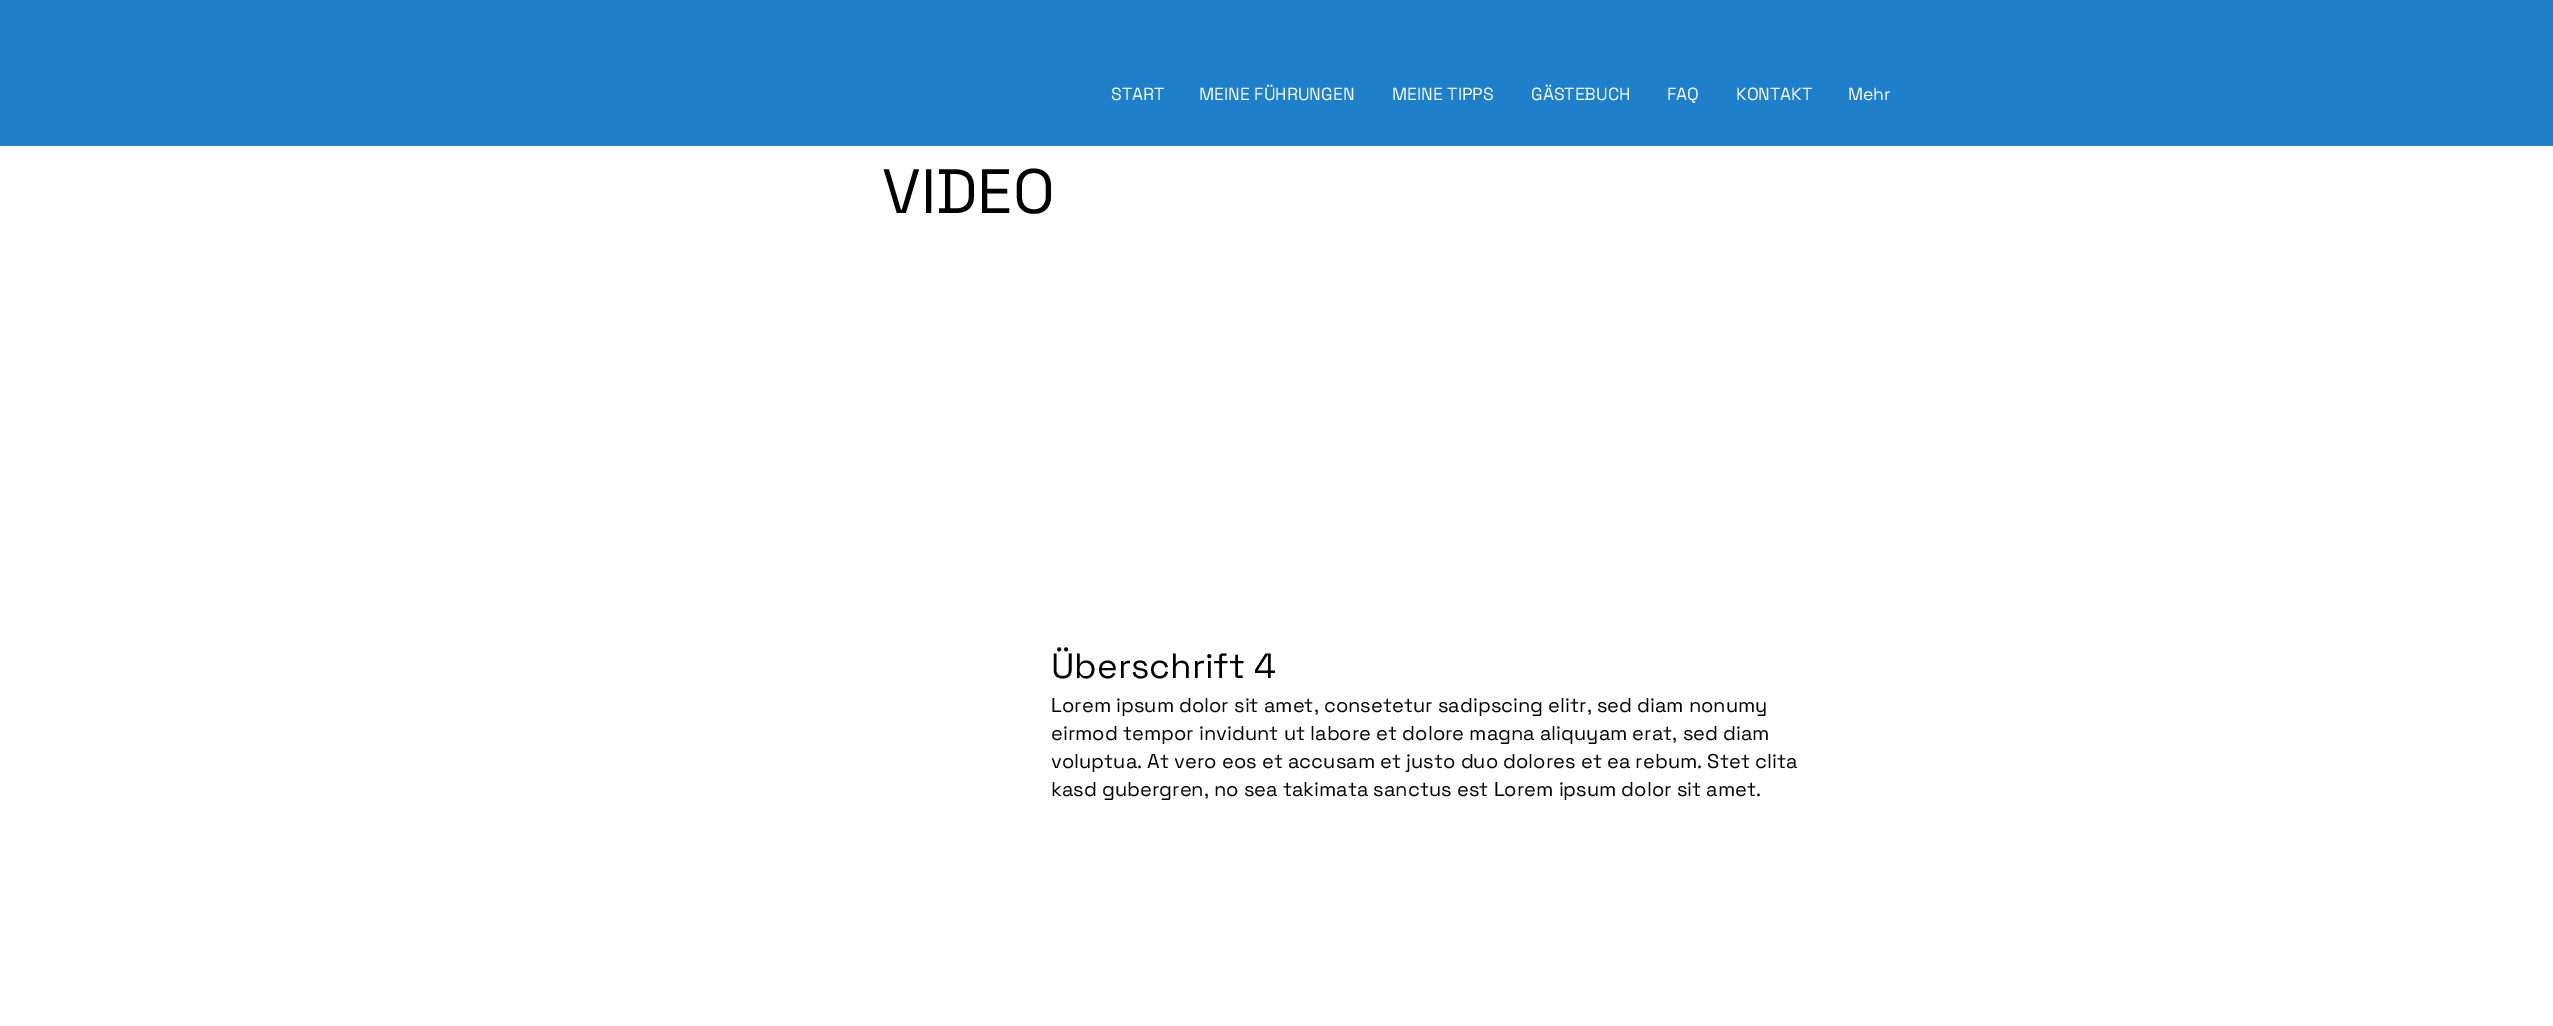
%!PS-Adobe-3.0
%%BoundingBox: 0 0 2553 1026
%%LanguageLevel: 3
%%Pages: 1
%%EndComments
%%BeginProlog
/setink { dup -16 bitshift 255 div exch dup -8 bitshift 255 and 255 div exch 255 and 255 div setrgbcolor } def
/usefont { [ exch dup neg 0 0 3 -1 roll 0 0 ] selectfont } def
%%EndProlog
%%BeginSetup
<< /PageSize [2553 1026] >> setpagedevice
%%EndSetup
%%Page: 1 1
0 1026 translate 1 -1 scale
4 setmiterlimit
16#1E7FCB setink
0 0 2553 1026 rectfill
/SpaceGrotesk-Regular 17.5 usefont
16#FFFFFF setink
[
    [(START) 1111 100]
    [(MEINE FÜHRUNGEN) 1199 100]
    [(MEINE TIPPS) 1392 100]
    [(GÄSTEBUCH) 1531 100]
    [(FAQ) 1667 100]
    [(KONTAKT) 1736 100]
    [(Mehr) 1848 100]
] { aload pop moveto show } forall
0 146 2553 880 rectfill
/SpaceGrotesk-Regular 62.5 usefont
16#000000 setink
882 213 moveto (VIDEO) show
/SpaceGrotesk-Regular 35 usefont
1051 678 moveto (Überschrift 4) show
/SpaceGrotesk-Regular 20 usefont
[
    [(Lorem ipsum dolor sit amet, consetetur sadipscing elitr, sed diam nonumy) 1051 712]
    [(eirmod tempor invidunt ut labore et dolore magna aliquyam erat, sed diam) 1051 740]
    [(voluptua. At vero eos et accusam et justo duo dolores et ea rebum. Stet clita) 1051 768]
    [(kasd gubergren, no sea takimata sanctus est Lorem ipsum dolor sit amet.) 1051 796]
] { aload pop moveto show } forall
showpage
%%EOF
